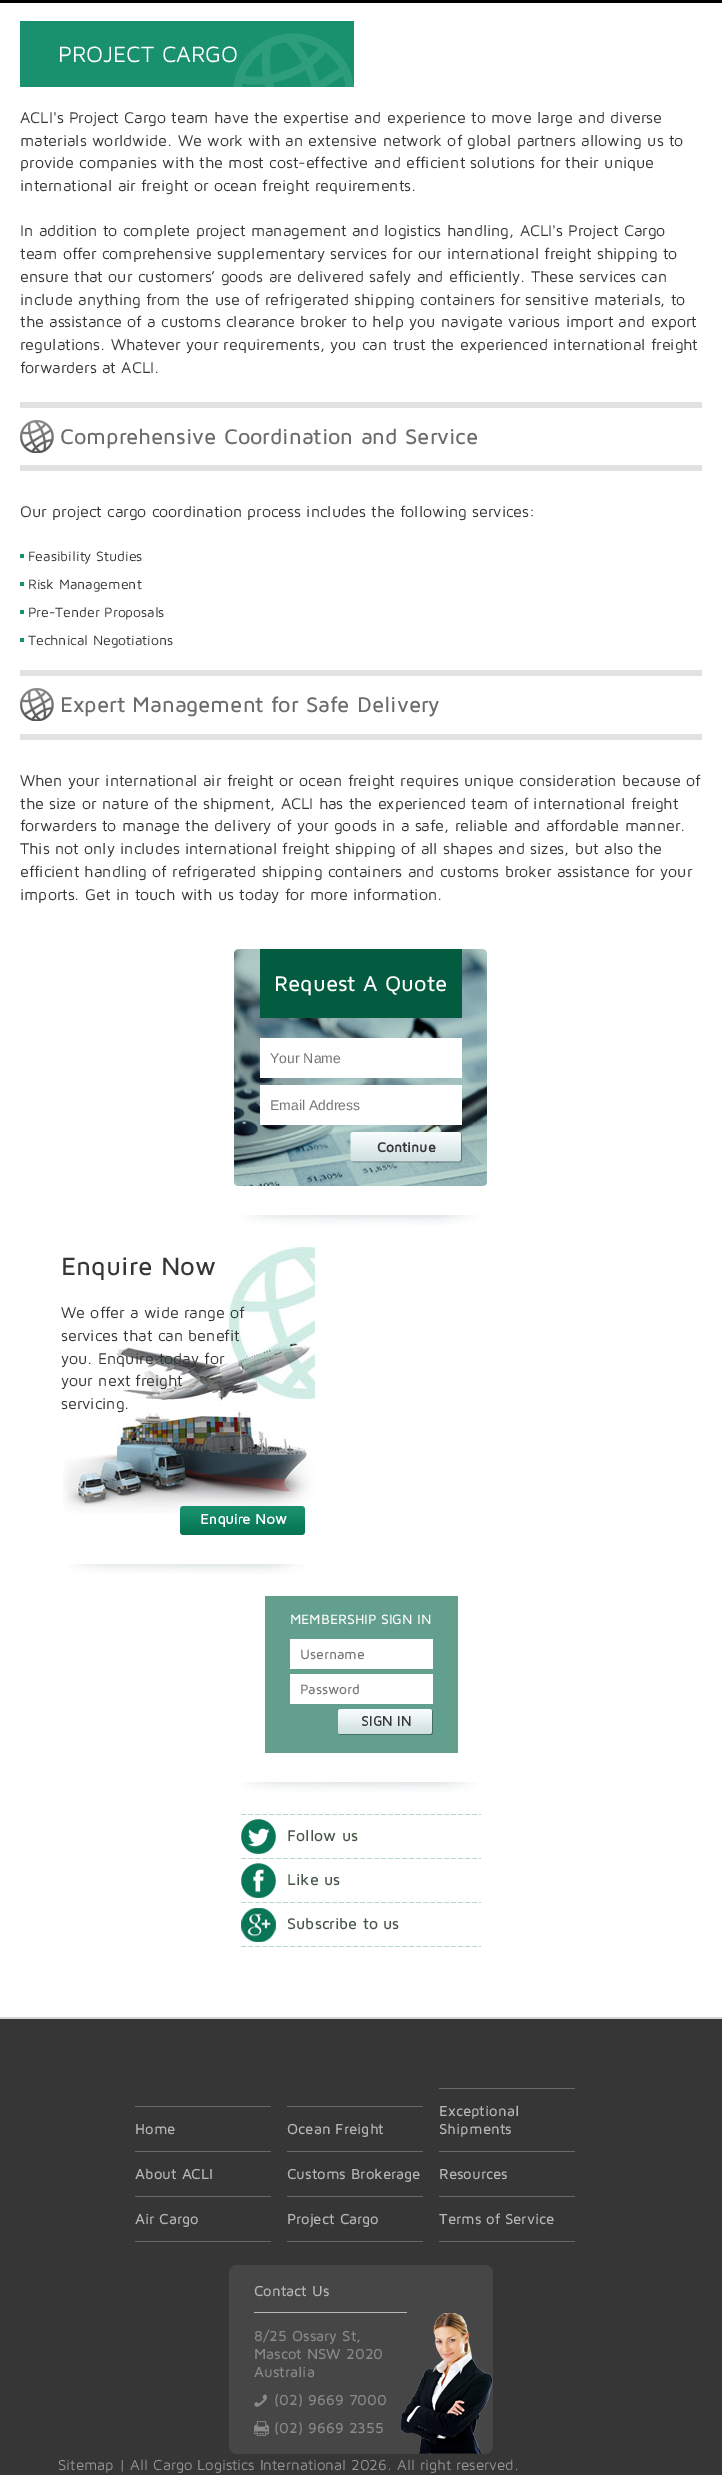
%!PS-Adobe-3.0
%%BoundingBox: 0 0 722 2475
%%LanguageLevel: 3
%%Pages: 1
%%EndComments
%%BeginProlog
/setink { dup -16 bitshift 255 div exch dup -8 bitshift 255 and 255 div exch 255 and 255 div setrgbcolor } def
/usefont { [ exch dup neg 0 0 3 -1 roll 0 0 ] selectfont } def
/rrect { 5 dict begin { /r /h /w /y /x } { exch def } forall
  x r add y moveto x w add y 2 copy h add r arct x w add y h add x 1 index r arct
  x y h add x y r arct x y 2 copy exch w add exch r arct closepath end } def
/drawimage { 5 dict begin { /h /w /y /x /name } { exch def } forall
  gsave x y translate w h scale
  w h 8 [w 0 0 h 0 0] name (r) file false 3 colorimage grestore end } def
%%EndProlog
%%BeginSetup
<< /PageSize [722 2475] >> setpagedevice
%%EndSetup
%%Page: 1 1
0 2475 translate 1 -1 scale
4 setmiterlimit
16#FFFFFF setink
0 0 722 2475 rectfill
16#000000 setink
0 0 722 3 rectfill
16#19916E setink
20 21 334 66 rectfill
(img1.raw) 233 33 121 54 drawimage
/MavenPro-Regular 23 usefont
16#FFFFFF setink
58 62 moveto (PROJECT CARGO) show
/MavenPro-Regular 16 usefont
16#363636 setink
[
    [(ACLI's Project Cargo team have the expertise and experience to move large and diverse) 20 123]
    [(materials worldwide. We work with an extensive network of global partners allowing us to) 20 146]
    [(provide companies with the most cost-effective and efficient solutions for their unique) 20 168]
    [(international air freight or ocean freight requirements.) 20 191]
    [(In addition to complete project management and logistics handling, ACLI's Project Cargo) 20 236]
    [(team offer comprehensive supplementary services for our international freight shipping to) 20 259]
    [(ensure that our customers’ goods are delivered safely and efficiently. These services can) 20 282]
    [(include anything from the use of refrigerated shipping containers for sensitive materials, to) 20 305]
    [(the assistance of a customs clearance broker to help you navigate various import and export) 20 327]
    [(regulations. Whatever your requirements, you can trust the experienced international freight) 20 350]
    [(forwarders at ACLI.) 20 373]
] { aload pop moveto show } forall
(img2.raw) 20 420 34 33 drawimage
16#E2E2E2 setink
20 402 682 6 rectfill
20 465 682 6 rectfill
/MavenPro-Medium 22 usefont
16#6B6B6B setink
60 444 moveto (Comprehensive Coordination and Service) show
/MavenPro-Regular 16 usefont
16#363636 setink
20 517 moveto (Our project cargo coordination process includes the following services:) show
16#19916D setink
20 554 4 4 rectfill
/MavenPro-Regular 14 usefont
16#363636 setink
28 561 moveto (Feasibility Studies) show
16#19916D setink
20 582 4 4 rectfill
16#363636 setink
28 589 moveto (Risk Management) show
16#19916D setink
20 610 4 4 rectfill
16#363636 setink
28 617 moveto (Pre-Tender Proposals) show
16#19916D setink
20 638 4 4 rectfill
16#363636 setink
28 645 moveto (Technical Negotiations) show
(img2.raw) 20 688 34 33 drawimage
16#E2E2E2 setink
20 670 682 6 rectfill
20 734 682 6 rectfill
/MavenPro-Medium 22 usefont
16#6B6B6B setink
60 712 moveto (Expert Management for Safe Delivery) show
/MavenPro-Regular 16 usefont
16#363636 setink
[
    [(When your international air freight or ocean freight requires unique consideration because of) 20 786]
    [(the size or nature of the shipment, ACLI has the experienced team of international freight) 20 809]
    [(forwarders to manage the delivery of your goods in a safe, reliable and affordable manner.) 20 831]
    [(This not only includes international freight shipping of all shapes and sizes, but also the) 20 854]
    [(efficient handling of refrigerated shipping containers and customs broker assistance for your) 20 877]
    [(imports. Get in touch with us today for more information.) 20 900]
] { aload pop moveto show } forall
(img3.raw) 242 1215 236 10 drawimage
(img4.raw) 234 949 253 237 drawimage
16#045C40 setink
260 949 202 69 rectfill
/MavenPro-Medium 22 usefont
16#FFFFFF setink
274 991 moveto (Request A Quote) show
260 1038 202 40 rectfill
/LiberationSans-Regular 14 usefont
16#757575 setink
270 1063 moveto (Your Name) show
16#FFFFFF setink
260 1085 202 40 rectfill
16#757575 setink
270 1110 moveto (Email Address) show
(img5.raw) 350 1132 112 31 drawimage
/MavenPro-Bold 14 usefont
16#363636 setink
377 1152 moveto (Continue) show
(img3.raw) 69 1564 236 10 drawimage
(img6.raw) 63 1247 252 266 drawimage
/MavenPro-Medium 26 usefont
61 1275 moveto (Enquire Now) show
/MavenPro-Regular 16 usefont
[
    [(We offer a wide range of) 61 1318]
    [(services that can benefit) 61 1341]
    [(you. Enquire today for) 61 1364]
    [(your next freight) 61 1386]
    [(servicing.) 61 1409]
] { aload pop moveto show } forall
(img7.raw) 180 1506 125 29 drawimage
(img3.raw) 242 1782 236 10 drawimage
16#629F8D setink
265 1596 193 157 rectfill
/MavenPro-Medium 14 usefont
16#FFFFFF setink
290 1624 moveto (MEMBERSHIP SIGN IN) show
290 1639 143 30 rectfill
16#757575 setink
300 1659 moveto (Username) show
16#FFFFFF setink
290 1674 143 30 rectfill
16#757575 setink
300 1694 moveto (Password) show
(img8.raw) 338 1709 95 26 drawimage
(img9.raw) 241 1814 240 1 drawimage
(img10.raw) 241 1819 35 35 drawimage
/MavenPro-Medium 16 usefont
16#465646 setink
287 1841 moveto (Follow us) show
(img9.raw) 241 1858 240 1 drawimage
(img11.raw) 241 1863 35 35 drawimage
287 1885 moveto (Like us) show
(img9.raw) 241 1902 240 1 drawimage
(img12.raw) 241 1908 35 34 drawimage
287 1929 moveto (Subscribe to us) show
(img9.raw) 241 1946 240 1 drawimage
[
    [0 2017 722 2 16#D5D5D5]
    [0 2019 722 456 16#363636]
    [135 2106 136 1 16#686868]
    [135 2151 136 1 16#686868]
] { aload pop setink rectfill } forall
/MavenPro-Medium 15 usefont
16#B7B7B7 setink
135 2134 moveto (Home) show
16#686868 setink
135 2196 136 1 rectfill
16#B7B7B7 setink
135 2179 moveto (About ACLI) show
16#686868 setink
135 2241 136 1 rectfill
16#B7B7B7 setink
135 2224 moveto (Air Cargo) show
16#686868 setink
287 2106 136 1 rectfill
287 2151 136 1 rectfill
16#B7B7B7 setink
287 2134 moveto (Ocean Freight) show
16#686868 setink
287 2196 136 1 rectfill
16#B7B7B7 setink
287 2179 moveto (Customs Brokerage) show
16#686868 setink
287 2241 136 1 rectfill
16#B7B7B7 setink
287 2224 moveto (Project Cargo) show
16#686868 setink
439 2088 136 1 rectfill
439 2151 136 1 rectfill
16#B7B7B7 setink
439 2116 moveto (Exceptional) show
439 2134 moveto (Shipments) show
16#686868 setink
439 2196 136 1 rectfill
16#B7B7B7 setink
439 2179 moveto (Resources) show
16#686868 setink
439 2241 136 1 rectfill
16#B7B7B7 setink
439 2224 moveto (Terms of Service) show
16#464646 setink
229 2265 264 189 8 rrect fill
(img13.raw) 400 2313 93 141 drawimage
16#B7B7B7 setink
254 2312 153 1 rectfill
254 2296 moveto (Contact Us) show
16#898989 setink
[
    [(8/25 Ossary St,) 254 2341]
    [(Mascot NSW 2020) 254 2359]
    [(Australia) 254 2377]
] { aload pop moveto show } forall
(img14.raw) 254 2394 13 13 drawimage
274 2405 moveto (\(02\) 9669 7000) show
(img15.raw) 254 2421 15 15 drawimage
274 2433 moveto (\(02\) 9669 2355) show
/MavenPro-Regular 15 usefont
16#959595 setink
58 2470 moveto (Sitemap | All Cargo Logistics International 2026. All right reserved.) show
showpage
%%EOF
